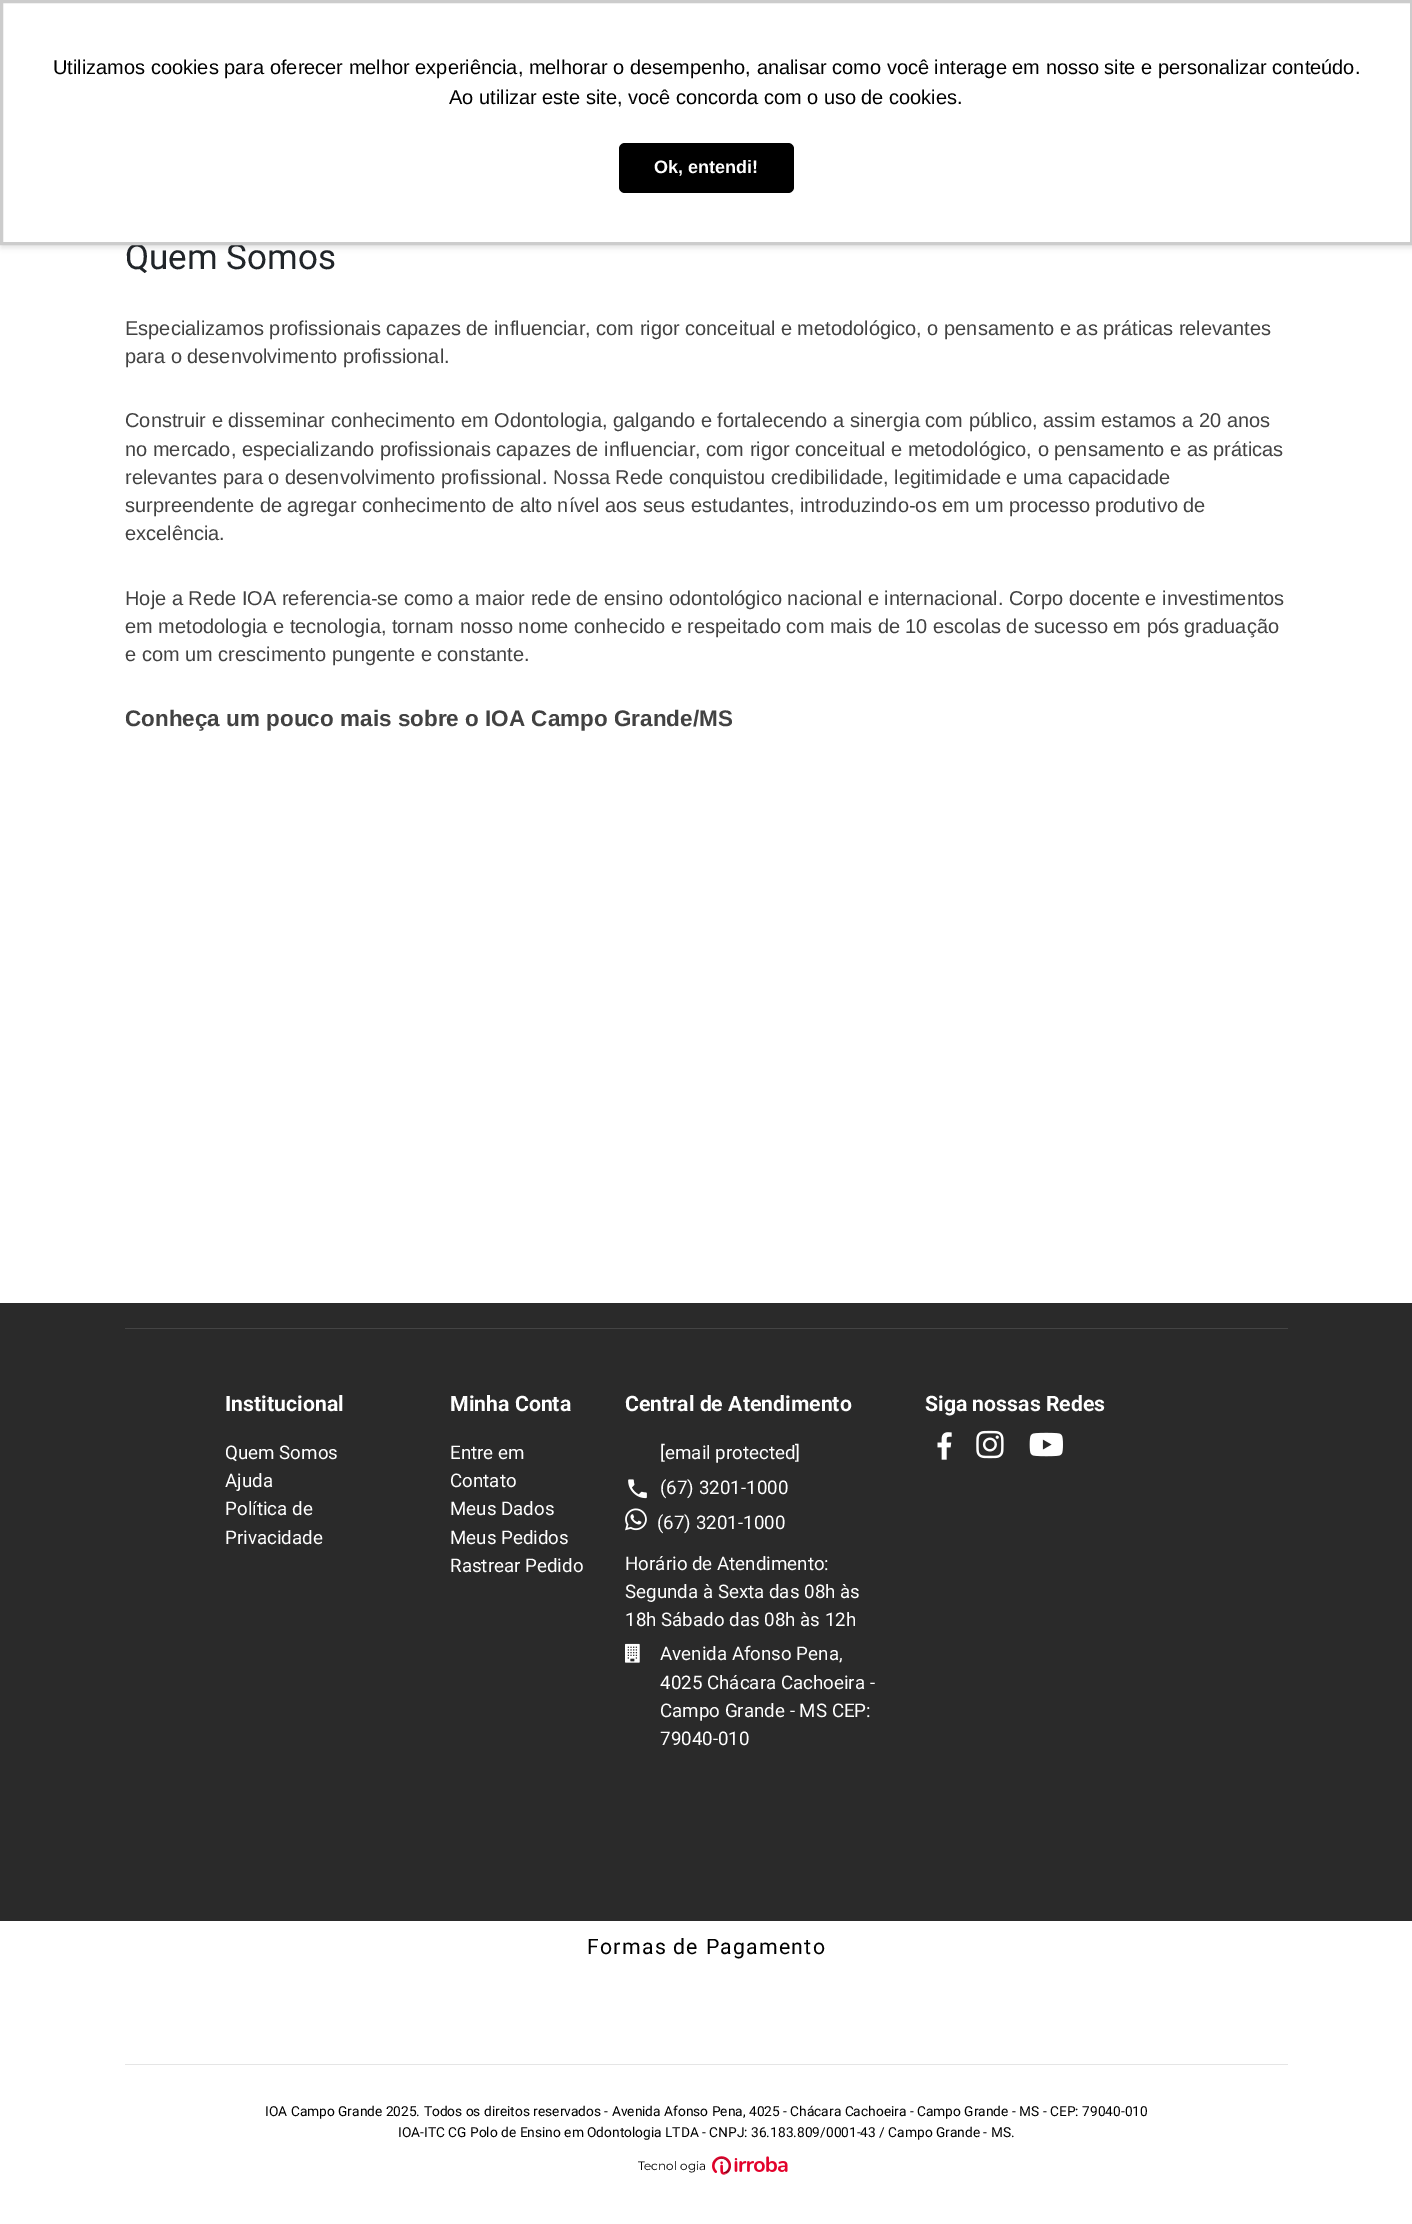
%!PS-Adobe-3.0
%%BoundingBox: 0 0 1412 2224
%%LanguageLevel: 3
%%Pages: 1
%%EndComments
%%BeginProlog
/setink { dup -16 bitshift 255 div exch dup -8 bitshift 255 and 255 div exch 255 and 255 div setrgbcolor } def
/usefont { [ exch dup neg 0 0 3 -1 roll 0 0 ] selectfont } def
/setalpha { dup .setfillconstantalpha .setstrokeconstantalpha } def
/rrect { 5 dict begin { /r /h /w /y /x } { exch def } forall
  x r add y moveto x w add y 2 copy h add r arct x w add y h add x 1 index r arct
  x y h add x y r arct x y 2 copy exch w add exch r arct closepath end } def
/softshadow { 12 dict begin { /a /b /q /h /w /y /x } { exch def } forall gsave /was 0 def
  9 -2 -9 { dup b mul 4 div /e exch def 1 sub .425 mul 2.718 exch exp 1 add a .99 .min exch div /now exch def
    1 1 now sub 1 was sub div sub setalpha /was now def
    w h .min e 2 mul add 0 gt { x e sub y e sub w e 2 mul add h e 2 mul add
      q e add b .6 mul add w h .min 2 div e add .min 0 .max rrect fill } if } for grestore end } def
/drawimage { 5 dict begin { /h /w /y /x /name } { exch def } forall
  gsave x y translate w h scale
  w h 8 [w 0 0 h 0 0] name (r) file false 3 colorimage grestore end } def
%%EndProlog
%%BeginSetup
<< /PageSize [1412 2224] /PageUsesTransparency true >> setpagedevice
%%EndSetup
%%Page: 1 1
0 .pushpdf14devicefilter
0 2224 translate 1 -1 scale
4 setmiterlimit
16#FFFFFF setink
0 0 1412 2224 rectfill
16#000000 setink
1 3 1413 245 0 2.5 0.1 softshadow
/Roboto-Regular 35 usefont
16#212529 setink
125 269 moveto (Quem Somos) show
16#FFFFFF setink
1.5 1.5 moveto 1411.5 1.5 lineto 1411.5 243.5 lineto 1.5 243.5 lineto closepath gsave fill grestore
16#CCCCCC setink
3 setlinewidth
stroke
/LiberationSans-Regular 20 usefont
16#000000 setink
53 74 moveto (Utilizamos cookies para oferecer melhor experiência, melhorar o desempenho, analisar como você interage em nosso site e personalizar conteúdo.) show
449 104 moveto (Ao utilizar este site, você concorda com o uso de cookies.) show
619 143 175 50 6 rrect fill
/LiberationSans-Bold 18 usefont
16#FFFFFF setink
654 173 moveto (Ok, entendi!) show
/LiberationSans-Regular 20 usefont
16#424242 setink
[
    [(Especializamos profissionais capazes de influenciar, com rigor conceitual e metodológico, o pensamento e as práticas relevantes) 125 335]
    [(para o desenvolvimento profissional.) 125 363]
    [(Construir e disseminar conhecimento em Odontologia, galgando e fortalecendo a sinergia com público, assim estamos a 20 anos) 125 427]
    [(no mercado, especializando profissionais capazes de influenciar, com rigor conceitual e metodológico, o pensamento e as práticas) 125 456]
    [(relevantes para o desenvolvimento profissional. Nossa Rede conquistou credibilidade, legitimidade e uma capacidade) 125 484]
    [(surpreendente de agregar conhecimento de alto nível aos seus estudantes, introduzindo-os em um processo produtivo de) 125 512]
    [(excelência.) 125 540]
    [(Hoje a Rede IOA referencia-se como a maior rede de ensino odontológico nacional e internacional. Corpo docente e investimentos) 125 605]
    [(em metodologia e tecnologia, tornam nosso nome conhecido e respeitado com mais de 10 escolas de sucesso em pós graduação) 125 633]
    [(e com um crescimento pungente e constante.) 125 661]
] { aload pop moveto show } forall
/LiberationSans-Bold 22.5 usefont
125 726 moveto (Conheça um pouco mais sobre o IOA Campo Grande/MS) show
16#2A2A2A setink
0 1303 1412 618 rectfill
16#444444 setink
125 1328 1163 1 rectfill
/Roboto-Bold 21.25 usefont
16#FFFFFF setink
225 1411 moveto (Institucional) show
/Roboto-Regular 18.75 usefont
[
    [(Quem Somos) 225 1459]
    [(Ajuda) 225 1487]
    [(Política de) 225 1515]
    [(Privacidade) 225 1544]
] { aload pop moveto show } forall
/Roboto-Bold 21.25 usefont
450 1411 moveto (Minha Conta) show
/Roboto-Regular 18.75 usefont
[
    [(Entre em) 450 1459]
    [(Contato) 450 1487]
    [(Meus Dados) 450 1515]
    [(Meus Pedidos) 450 1544]
    [(Rastrear Pedido) 450 1572]
] { aload pop moveto show } forall
/Roboto-Bold 21.25 usefont
625 1411 moveto (Central de Atendimento) show
/Roboto-Regular 18.75 usefont
660 1459 moveto ([email protected]) show
(img1.raw) 628 1479 19 20 drawimage
660 1494 moveto (\(67\) 3201-1000) show
(img2.raw) 625 1508 22 23 drawimage
[
    [(\(67\) 3201-1000) 657 1529]
    [(Horário de Atendimento:) 625 1570]
    [(Segunda à Sexta das 08h às) 625 1598]
    [(18h Sábado das 08h às 12h) 625 1626]
] { aload pop moveto show } forall
(img3.raw) 625 1643 15 20 drawimage
[
    [(Avenida Afonso Pena,) 660 1660]
    [(4025 Chácara Cachoeira -) 660 1689]
    [(Campo Grande - MS CEP:) 660 1717]
    [(79040-010) 660 1745]
] { aload pop moveto show } forall
/Roboto-Bold 21.25 usefont
925 1411 moveto (Siga nossas Redes) show
(img4.raw) 937 1432 15 28 drawimage
(img5.raw) 976 1430 28 29 drawimage
(img6.raw) 1029 1432 34 25 drawimage
/Roboto-Regular 21.25 usefont
16#000000 setink
587 1954 moveto 1.25 0 (Formas de Pagamento) ashow
16#E5E5E5 setink
125 2064 1163 1 rectfill
/Roboto-Regular 13.75 usefont
16#000000 setink
265 2116 moveto (IOA Campo Grande 2025. Todos os direitos reservados - Avenida Afonso Pena, 4025 - Chácara Cachoeira - Campo Grande - MS - CEP: 79040-010) show
398 2137 moveto (IOA-ITC CG Polo de Ensino em Odontologia LTDA - CNPJ: 36.183.809/0001-43 / Campo Grande - MS.) show
(img7.raw) 712 2156 76 19 drawimage
/Montserrat-Regular 12 usefont
[
    [(T) 638 2170]
    [(ecnol) 644 2170]
    [(ogia) 680 2170]
] { aload pop moveto show } forall
.poppdf14devicefilter showpage
%%EOF
